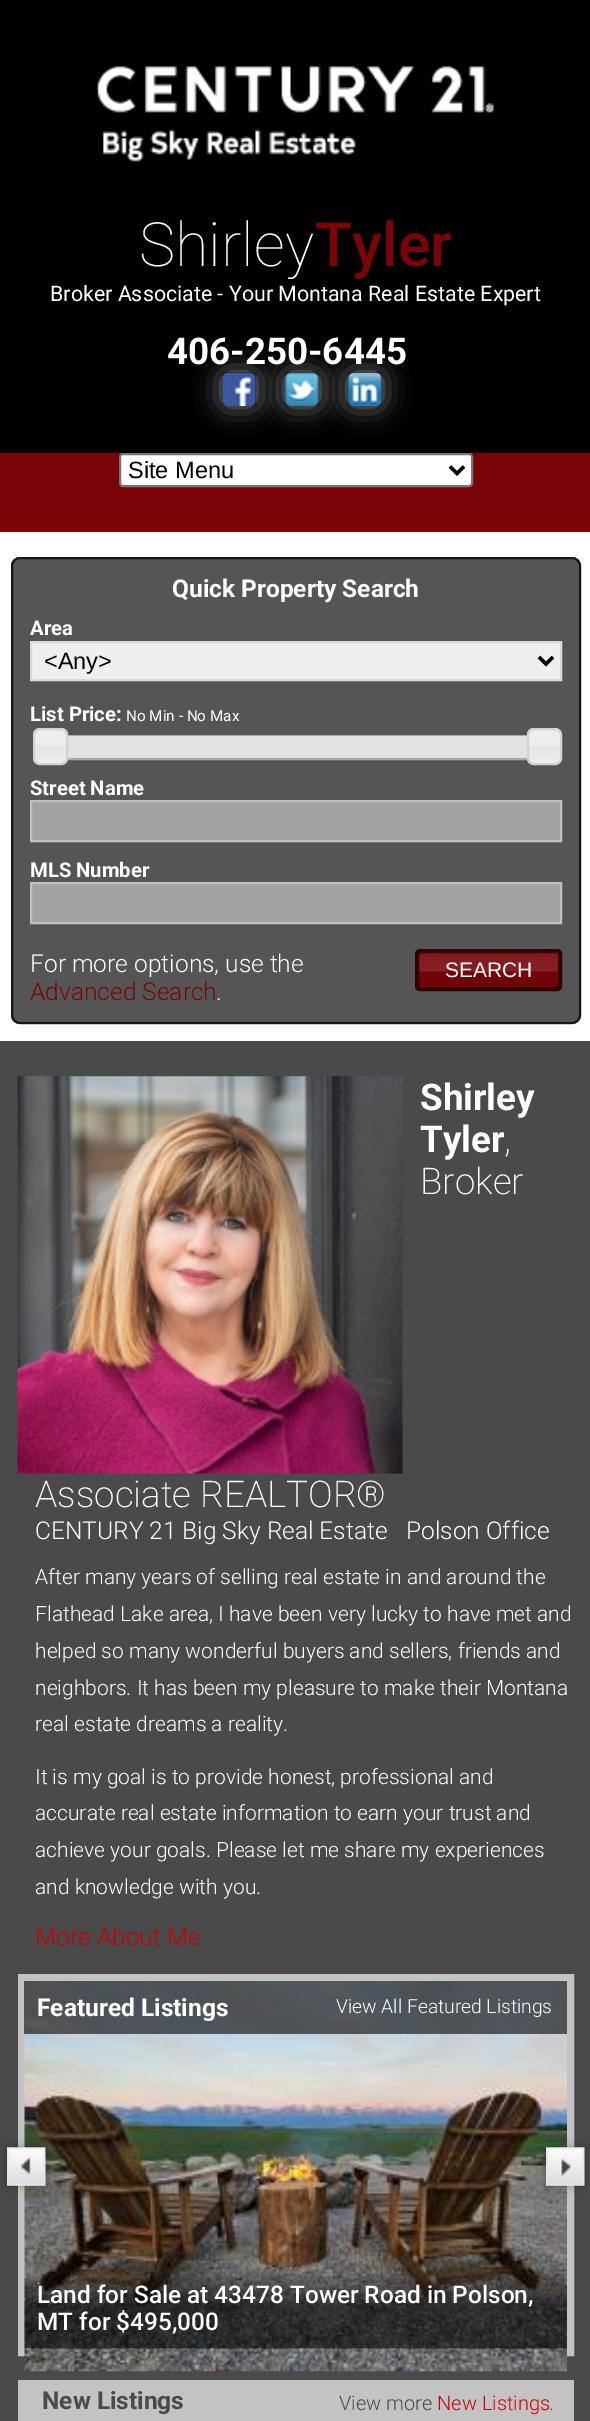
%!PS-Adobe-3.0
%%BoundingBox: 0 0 590 2421
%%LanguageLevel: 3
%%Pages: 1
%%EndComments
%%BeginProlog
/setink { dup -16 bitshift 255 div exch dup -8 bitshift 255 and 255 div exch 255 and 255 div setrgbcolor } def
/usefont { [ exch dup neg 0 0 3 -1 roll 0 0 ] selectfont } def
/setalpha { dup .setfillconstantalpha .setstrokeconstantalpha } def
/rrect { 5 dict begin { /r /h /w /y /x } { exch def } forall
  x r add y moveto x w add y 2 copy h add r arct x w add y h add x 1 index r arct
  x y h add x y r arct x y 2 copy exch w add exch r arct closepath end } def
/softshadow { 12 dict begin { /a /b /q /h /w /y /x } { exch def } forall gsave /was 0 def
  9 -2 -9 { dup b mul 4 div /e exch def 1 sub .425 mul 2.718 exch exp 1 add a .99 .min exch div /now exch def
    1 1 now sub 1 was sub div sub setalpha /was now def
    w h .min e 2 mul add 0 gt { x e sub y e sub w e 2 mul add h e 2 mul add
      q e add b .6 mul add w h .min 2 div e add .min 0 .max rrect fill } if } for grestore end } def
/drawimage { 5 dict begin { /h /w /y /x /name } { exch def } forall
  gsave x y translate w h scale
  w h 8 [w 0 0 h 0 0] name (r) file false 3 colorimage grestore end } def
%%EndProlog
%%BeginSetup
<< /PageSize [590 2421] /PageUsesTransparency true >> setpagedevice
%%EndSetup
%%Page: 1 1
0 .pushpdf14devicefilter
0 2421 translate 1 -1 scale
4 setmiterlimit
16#FFFFFF setink
0 0 590 2421 rectfill
16#000000 setink
0 0 590 453 rectfill
(img1.raw) 96 66 398 96 drawimage
/Roboto-Thin 61 usefont
16#FFFFFF setink
139 266 moveto (Shirley) show
/Roboto-Medium 61 usefont
16#7A0407 setink
315 266 moveto (Tyler) show
/Roboto-Regular 21.4 usefont
16#FFFFFF setink
50 301 moveto (Broker Associate - Your Montana Real Estate Expert) show
222 373 34 33 5 13 0.5 softshadow
(img2.raw) 222 372 34 34 drawimage
gsave
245 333 moveto 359 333 lineto 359 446 lineto 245 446 lineto closepath 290 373 moveto 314 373 lineto 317 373 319 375 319 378 curveto 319 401 lineto 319 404 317 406 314 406 curveto 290 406 lineto 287 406 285 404 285 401 curveto 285 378 lineto 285 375 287 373 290 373 curveto closepath eoclip newpath
285 373 34 33 5 13 0.5 softshadow
grestore
(img3.raw) 285 372 34 34 drawimage
gsave
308 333 moveto 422 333 lineto 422 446 lineto 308 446 lineto closepath 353 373 moveto 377 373 lineto 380 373 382 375 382 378 curveto 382 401 lineto 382 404 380 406 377 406 curveto 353 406 lineto 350 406 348 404 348 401 curveto 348 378 lineto 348 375 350 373 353 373 curveto closepath eoclip newpath
348 373 34 33 5 13 0.5 softshadow
grestore
(img4.raw) 348 372 34 34 drawimage
/Roboto-Bold 36.75 usefont
167 364 moveto (406-250-6445) show
16#7A0407 setink
0 453 590 79 rectfill
16#FFFFFF setink
120 454 352 32 3 rrect gsave fill grestore
16#767676 setink
2 setlinewidth
stroke
16#000000 setink
3.5 setlinewidth
450 466.5 moveto 457 473.5 lineto 464 466.5 lineto stroke
/LiberationSans-Regular 23.5 usefont
128 478 moveto (Site Menu) show
16#555555 setink
11 557 570 467 9 rrect fill
0.75 setalpha
16#000000 setink
2 setlinewidth
12 558 568 465 8 rrect stroke
/Roboto-Bold 24.5 usefont
1 setalpha
16#FFFFFF setink
172 597 moveto (Quick Property Search) show
/Roboto-Bold 20.25 usefont
30 635 moveto (Area) show
16#EFEFEF setink
31 642 moveto 561 642 lineto 561 680 lineto 31 680 lineto closepath gsave fill grestore
16#DADADA setink
stroke
16#000000 setink
3.5 setlinewidth
539 657 moveto 546 664 lineto 553 657 lineto stroke
/LiberationSans-Regular 23.5 usefont
44 669 moveto (<Any>) show
/Roboto-Bold 20.25 usefont
16#FFFFFF setink
30 721 moveto (List Price:) show
/Roboto-Regular 15.25 usefont
126 721 moveto (No Min - No Max) show
16#AAAAAA setink
2 setlinewidth
48 736 495 23 rectstroke
16#E2E2E2 setink
68 736 459 22 rectfill
(img5.raw) 33 728 36 37 drawimage
16#D3D3D3 setink
34 729 33 35 6 rrect stroke
(img6.raw) 526 728 36 37 drawimage
528 729 33 35 6 rrect stroke
/Roboto-Bold 20.25 usefont
16#FFFFFF setink
30 795 moveto (Street Name) show
16#A2A2A2 setink
31 801 moveto 561 801 lineto 561 841 lineto 31 841 lineto closepath gsave fill grestore
16#C1C1C1 setink
stroke
16#FFFFFF setink
30 877 moveto (MLS Number) show
16#A2A2A2 setink
31 883 moveto 561 883 lineto 561 923 lineto 31 923 lineto closepath gsave fill grestore
16#C1C1C1 setink
stroke
/Roboto-Light 24.5 usefont
16#FFFFFF setink
30 972 moveto (For more options, use the) show
16#7A0407 setink
30 1000 moveto (Advanced Search) show
16#FFFFFF setink
216 1000 moveto (.) show
16#7A0407 setink
415 949 147 42 5 rrect fill
(img7.raw) 415 949 147 39 drawimage
16#320001 setink
4 setlinewidth
417 951 143 38 3 rrect stroke
/LiberationSans-Regular 21 usefont
16#FFFFFF setink
445 977 moveto (SEARCH) show
16#4A4A4A setink
0 1041 590 1380 rectfill
(img8.raw) 17 1076 386 398 drawimage
/Roboto-Bold 36.75 usefont
16#FFFFFF setink
420 1110 moveto (Shirley) show
420 1152 moveto (Tyler) show
/Roboto-ExtraLight 36.75 usefont
[
    [(,) 504 1152]
    [(Broker) 420 1194]
    [(Associate REALTOR®) 35 1507]
] { aload pop moveto show } forall
/Roboto-Light 24.5 usefont
35 1539 moveto (CENTURY 21 Big Sky Real Estate) show
406 1539 moveto (Polson Office) show
/Roboto-Light 21 usefont
[
    [(After many years of selling real estate in and around the) 35 1584]
    [(Flathead Lake area, I have been very lucky to have met and) 35 1621]
    [(helped so many wonderful buyers and sellers, friends and) 35 1658]
    [(neighbors. It has been my pleasure to make their Montana) 35 1695]
    [(real estate dreams a reality.) 35 1731]
    [(It is my goal is to provide honest, professional and) 35 1784]
    [(accurate real estate information to earn your trust and) 35 1820]
    [(achieve your goals. Please let me share my experiences) 35 1857]
    [(and knowledge with you.) 35 1894]
] { aload pop moveto show } forall
/Roboto-Light 24.5 usefont
16#CB0005 setink
35 1945 moveto (More About Me) show
16#C3C3C3 setink
7 setlinewidth
21.5 1977.5 549 375 rectstroke
(img11.raw) 24 1981 543 391 drawimage
0.6 setalpha
16#000000 setink
24 1981 543 53 rectfill
/Roboto-Bold 24.5 usefont
1 setalpha
16#FFFFFF setink
37 2016 moveto (Featured Listings) show
/Roboto-Light 19.25 usefont
336 2013 moveto (View All Featured Listings) show
16#000000 setink
7 2147 39 39 0 4.5 0.33 softshadow
(img9.raw) 7 2147 39 39 drawimage
546 2147 39 39 0 4.5 0.33 softshadow
(img10.raw) 546 2147 39 39 drawimage
(img12.raw) 24 2272 543 77 drawimage
/Roboto-Medium 24.4 usefont
16#FFFFFF setink
37 2303 moveto (Land for Sale at 43478 Tower Road in Polson,) show
37 2330 moveto (MT for $495,000) show
16#C3C3C3 setink
18 2380 556 41 rectfill
/Roboto-Bold 24.5 usefont
16#4A4A4A setink
42 2409 moveto (New Listings) show
/Roboto-Light 20 usefont
339 2410 moveto (View more) show
16#CB0005 setink
437 2410 moveto (New Listings) show
16#4A4A4A setink
549 2410 moveto (.) show
.poppdf14devicefilter showpage
%%EOF
